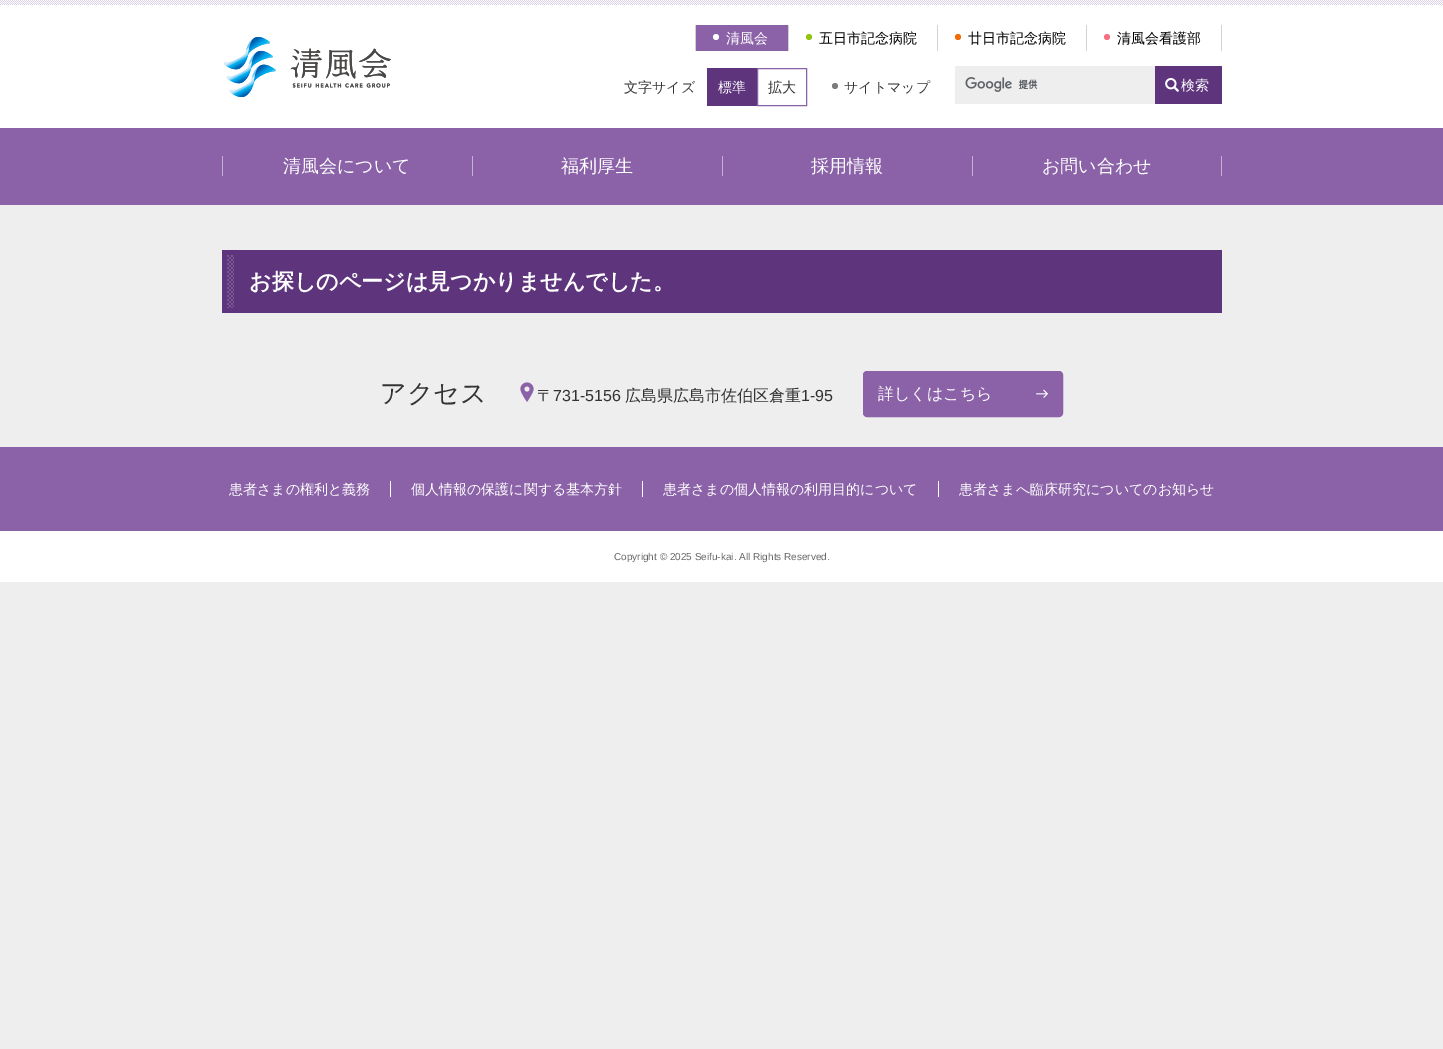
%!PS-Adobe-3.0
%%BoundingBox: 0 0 1443 1049
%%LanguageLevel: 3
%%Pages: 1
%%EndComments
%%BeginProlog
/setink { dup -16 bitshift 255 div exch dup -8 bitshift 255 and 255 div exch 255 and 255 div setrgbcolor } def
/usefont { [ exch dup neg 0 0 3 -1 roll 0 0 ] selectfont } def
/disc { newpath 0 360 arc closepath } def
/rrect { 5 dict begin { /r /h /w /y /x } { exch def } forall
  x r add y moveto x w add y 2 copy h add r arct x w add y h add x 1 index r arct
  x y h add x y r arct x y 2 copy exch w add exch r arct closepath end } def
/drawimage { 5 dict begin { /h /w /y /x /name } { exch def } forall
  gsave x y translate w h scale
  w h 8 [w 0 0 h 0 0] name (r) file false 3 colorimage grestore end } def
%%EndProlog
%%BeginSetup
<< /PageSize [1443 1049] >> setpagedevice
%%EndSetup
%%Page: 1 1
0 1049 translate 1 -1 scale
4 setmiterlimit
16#EEEEEE setink
0 0 1443 1049 rectfill
16#DCD0E5 setink
0 0 1443 5 rectfill
(img1.raw) 0 0 1443 5 drawimage
16#FFFFFF setink
0 5 1443 123 rectfill
(img2.raw) 224 37 167 60 drawimage
16#D2D2D2 setink
695 25 1 26 rectfill
16#8B62A8 setink
696 25 92 26 rectfill
16#FFFFFF setink
716 37 3 disc fill
/WenQuanYiZenHei-Medium 14 usefont
726 43 moveto (清風会) show
16#D2D2D2 setink
788 25 1 26 rectfill
16#92C510 setink
809 37 3 disc fill
16#000000 setink
819 43 moveto (五日市記念病院) show
16#D2D2D2 setink
937 25 1 26 rectfill
16#F46900 setink
958 37 3 disc fill
16#000000 setink
968 43 moveto (廿日市記念病院) show
16#D2D2D2 setink
1221 25 1 26 rectfill
1086 25 1 26 rectfill
16#F77081 setink
1107 37 3 disc fill
16#000000 setink
1117 43 moveto (清風会看護部) show
16#333333 setink
624 92 moveto (文字サイズ) show
16#5E347C setink
707 68 50 38 rectfill
16#FFFFFF setink
718 92 moveto (標準) show
16#8B62A8 setink
757.5 68.5 49 37 rectstroke
16#333333 setink
768 92 moveto (拡大) show
16#7D7D7D setink
835 86 3 disc fill
16#333333 setink
844 92 moveto (サイトマップ) show
16#EEEEEE setink
955 66 200 38 rectfill
(img3.raw) 965 77 73 15 drawimage
16#5E347C setink
1155 66 67 38 rectfill
(img4.raw) 1165 78 14 14 drawimage
16#FFFFFF setink
1181 90 moveto (検索) show
16#8B62A8 setink
0 128 1443 77 rectfill
16#C5B1D4 setink
222 156 1 20 rectfill
/WenQuanYiZenHei-Medium 18 usefont
16#FFFFFF setink
283 172 moveto (清風会について) show
16#C5B1D4 setink
472 156 1 20 rectfill
16#FFFFFF setink
561 172 moveto (福利厚生) show
16#C5B1D4 setink
722 156 1 20 rectfill
16#FFFFFF setink
811 172 moveto (採用情報) show
16#C5B1D4 setink
972 156 1 20 rectfill
16#FFFFFF setink
1042 172 moveto (お問い合わせ) show
16#C5B1D4 setink
1221 156 1 20 rectfill
16#5E347C setink
222 250 1000 63 rectfill
(img5.raw) 227 255 7 53 drawimage
/WenQuanYiZenHei-Bold 22 usefont
16#FFFFFF setink
249 289 moveto (お探しのページは見つかりませんでした。) show
/WenQuanYiZenHei-Medium 26 usefont
16#333333 setink
380 402 moveto (アクセス) show
(img6.raw) 520 382 14 20 drawimage
/WenQuanYiZenHei-Medium 16 usefont
537 401 moveto (〒) show
/LiberationSans-Regular 16 usefont
553 401 moveto (731-5156) show
/WenQuanYiZenHei-Medium 16 usefont
625 401 moveto (広島県広島市佐伯区倉重) show
/LiberationSans-Regular 16 usefont
801 401 moveto (1-95) show
16#8B62A8 setink
863.5 371.5 199 45 3.5 rrect gsave fill grestore
stroke
/WenQuanYiZenHei-Medium 16 usefont
16#FFFFFF setink
878 399 moveto (詳しくはこちら) show
(img7.raw) 1036 389 12 9 drawimage
16#8B62A8 setink
0 447 1443 84 rectfill
/WenQuanYiZenHei-Medium 14 usefont
16#FFFFFF setink
229 494 moveto (患者さまの権利と義務) show
390 481 1 16 rectfill
411 494 moveto (個人情報の保護に関する基本方針) show
642 481 1 16 rectfill
663 494 moveto (患者さまの個人情報の利用目的について) show
938 481 1 16 rectfill
959 494 moveto (患者さまへ臨床研究についてのお知らせ) show
0 531 1443 51 rectfill
/LiberationSans-Regular 10 usefont
16#666666 setink
614 560 moveto (Copyright © 2025 Seifu-kai. All Rights Reserved.) show
showpage
%%EOF
